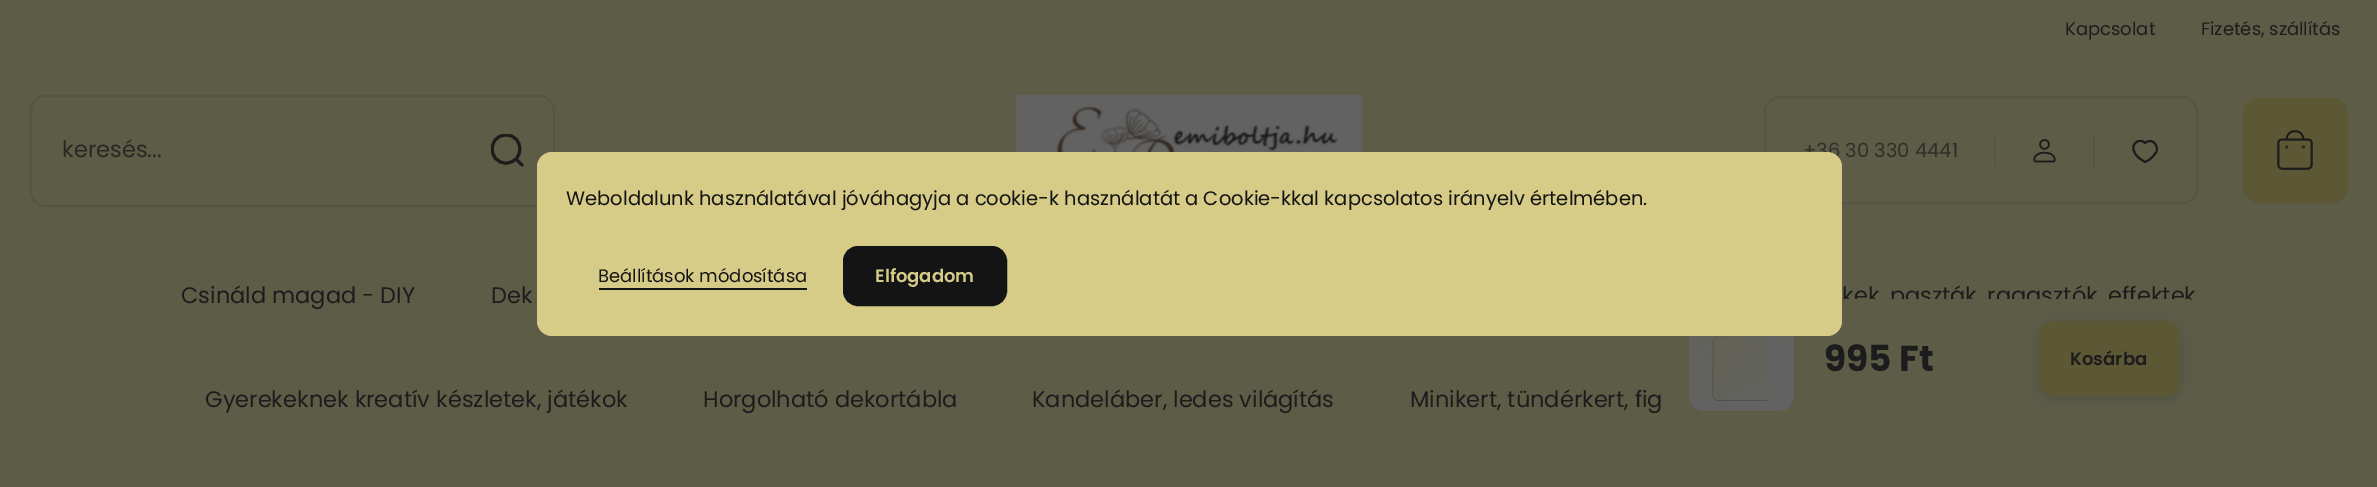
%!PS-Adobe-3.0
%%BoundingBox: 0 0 2377 487
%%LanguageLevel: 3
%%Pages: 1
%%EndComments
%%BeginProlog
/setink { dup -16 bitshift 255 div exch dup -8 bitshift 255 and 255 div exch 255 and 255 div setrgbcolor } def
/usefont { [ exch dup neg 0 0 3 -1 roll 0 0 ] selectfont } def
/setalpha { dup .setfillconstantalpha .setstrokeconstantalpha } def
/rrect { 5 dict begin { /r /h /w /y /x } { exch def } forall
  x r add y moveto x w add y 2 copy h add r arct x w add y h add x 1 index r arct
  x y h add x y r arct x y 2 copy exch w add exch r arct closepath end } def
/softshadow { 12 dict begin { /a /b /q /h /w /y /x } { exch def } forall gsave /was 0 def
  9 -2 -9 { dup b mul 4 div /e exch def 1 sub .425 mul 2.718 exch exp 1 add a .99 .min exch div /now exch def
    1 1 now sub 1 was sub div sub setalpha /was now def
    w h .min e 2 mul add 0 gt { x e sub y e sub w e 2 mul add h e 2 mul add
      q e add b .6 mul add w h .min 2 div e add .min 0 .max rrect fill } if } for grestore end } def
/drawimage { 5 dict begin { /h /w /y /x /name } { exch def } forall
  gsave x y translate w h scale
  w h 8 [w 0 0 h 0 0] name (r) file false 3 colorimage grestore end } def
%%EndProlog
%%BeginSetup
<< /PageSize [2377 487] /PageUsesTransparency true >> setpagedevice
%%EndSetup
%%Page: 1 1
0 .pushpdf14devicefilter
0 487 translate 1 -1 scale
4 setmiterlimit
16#5D5C47 setink
0 0 2377 487 rectfill
/Poppins-Regular 18 usefont
16#1C1C1C setink
2065 35 moveto (Kapcsolat) show
2201 35 moveto (Fizetés, szállítás) show
16#565543 setink
2 setlinewidth
31 96 523 110 14 rrect stroke
/Poppins-Regular 22.5 usefont
16#292924 setink
62 157 moveto (keresés...) show
gsave
491 134 33 33 rectclip
16#1C1C1C setink
3 setlinewidth
1 setlinecap
1 setlinejoin
522 165 moveto 516 159 lineto 506 163 moveto 487.5 163 487.5 135 506 135 curveto 524.5 135 524.5 163 506 163 curveto closepath stroke
grestore
(img1.raw) 1014 94 349 58 drawimage
16#565543 setink
1765 97 432 106 14 rrect stroke
/Poppins-Regular 19.5 usefont
16#2F2F29 setink
1803 157 moveto (+36 30 330 4441) show
16#585744 setink
1994 134 2 33 rectfill
(img2.raw) 2033 139 23 24 drawimage
16#565543 setink
2093 134 2 33 rectfill
gsave
2132 140 27 24 rectclip
16#1C1C1C setink
1 setlinecap
1 setlinejoin
2150 141 moveto 2155 141 2158 146.5 2156.5 151.5 curveto 2155 155 2152 157.5 2149 160 curveto 2145 162 lineto 2139 158 lineto 2125.5 146.5 2139 136 2145 143 curveto 2146 142 2147.5 141 2150 141 curveto closepath stroke
grestore
16#5C5836 setink
2244 99 103 103 14 rrect gsave fill grestore
stroke
(img3.raw) 2277 130 36 40 drawimage
/Poppins-Regular 22.5 usefont
16#1C1C1C setink
[
    [(Csináld magad - DIY) 181 303]
    [(Dek) 491 303]
    [(kek, paszták, ragasztók, effektek) 1842 303]
    [(Gyerekeknek kreatív készletek, játékok) 205 407]
    [(Horgolható dekortábla) 703 407]
    [(Kandeláber, ledes világítás) 1032 407]
    [(Minikert, tündérkert, fig) 1410 407]
] { aload pop moveto show } forall
16#5D5C47 setink
1667 299 535 120 15 rrect fill
(img4.raw) 1689 336 105 75 drawimage
/Poppins-Bold 36 usefont
16#1C1C1C setink
1824 371 moveto (995 Ft) show
2039 324 141 75 15 6 0.2 softshadow
16#5C5836 setink
2040 322 139 73 14 rrect gsave fill grestore
stroke
/Poppins-SemiBold 18 usefont
16#1C1C1C setink
2070 365 moveto (Kosárba) show
16#D6CB87 setink
537 152 1305 184 15 rrect fill
/Poppins-Regular 19.5 usefont
16#141414 setink
566 205 moveto (Weboldalunk használatával jóváhagyja a cookie-k használatát a Cookie-kkal kapcsolatos irányelv értelmében.) show
/Poppins-Regular 18 usefont
598 282 moveto (Beállítások módosítása) show
599 288 208 2 rectfill
844 247 162 58 14 rrect gsave fill grestore
stroke
/Poppins-SemiBold 18 usefont
16#D6CB87 setink
875 282 moveto (Elfogadom) show
.poppdf14devicefilter showpage
%%EOF
